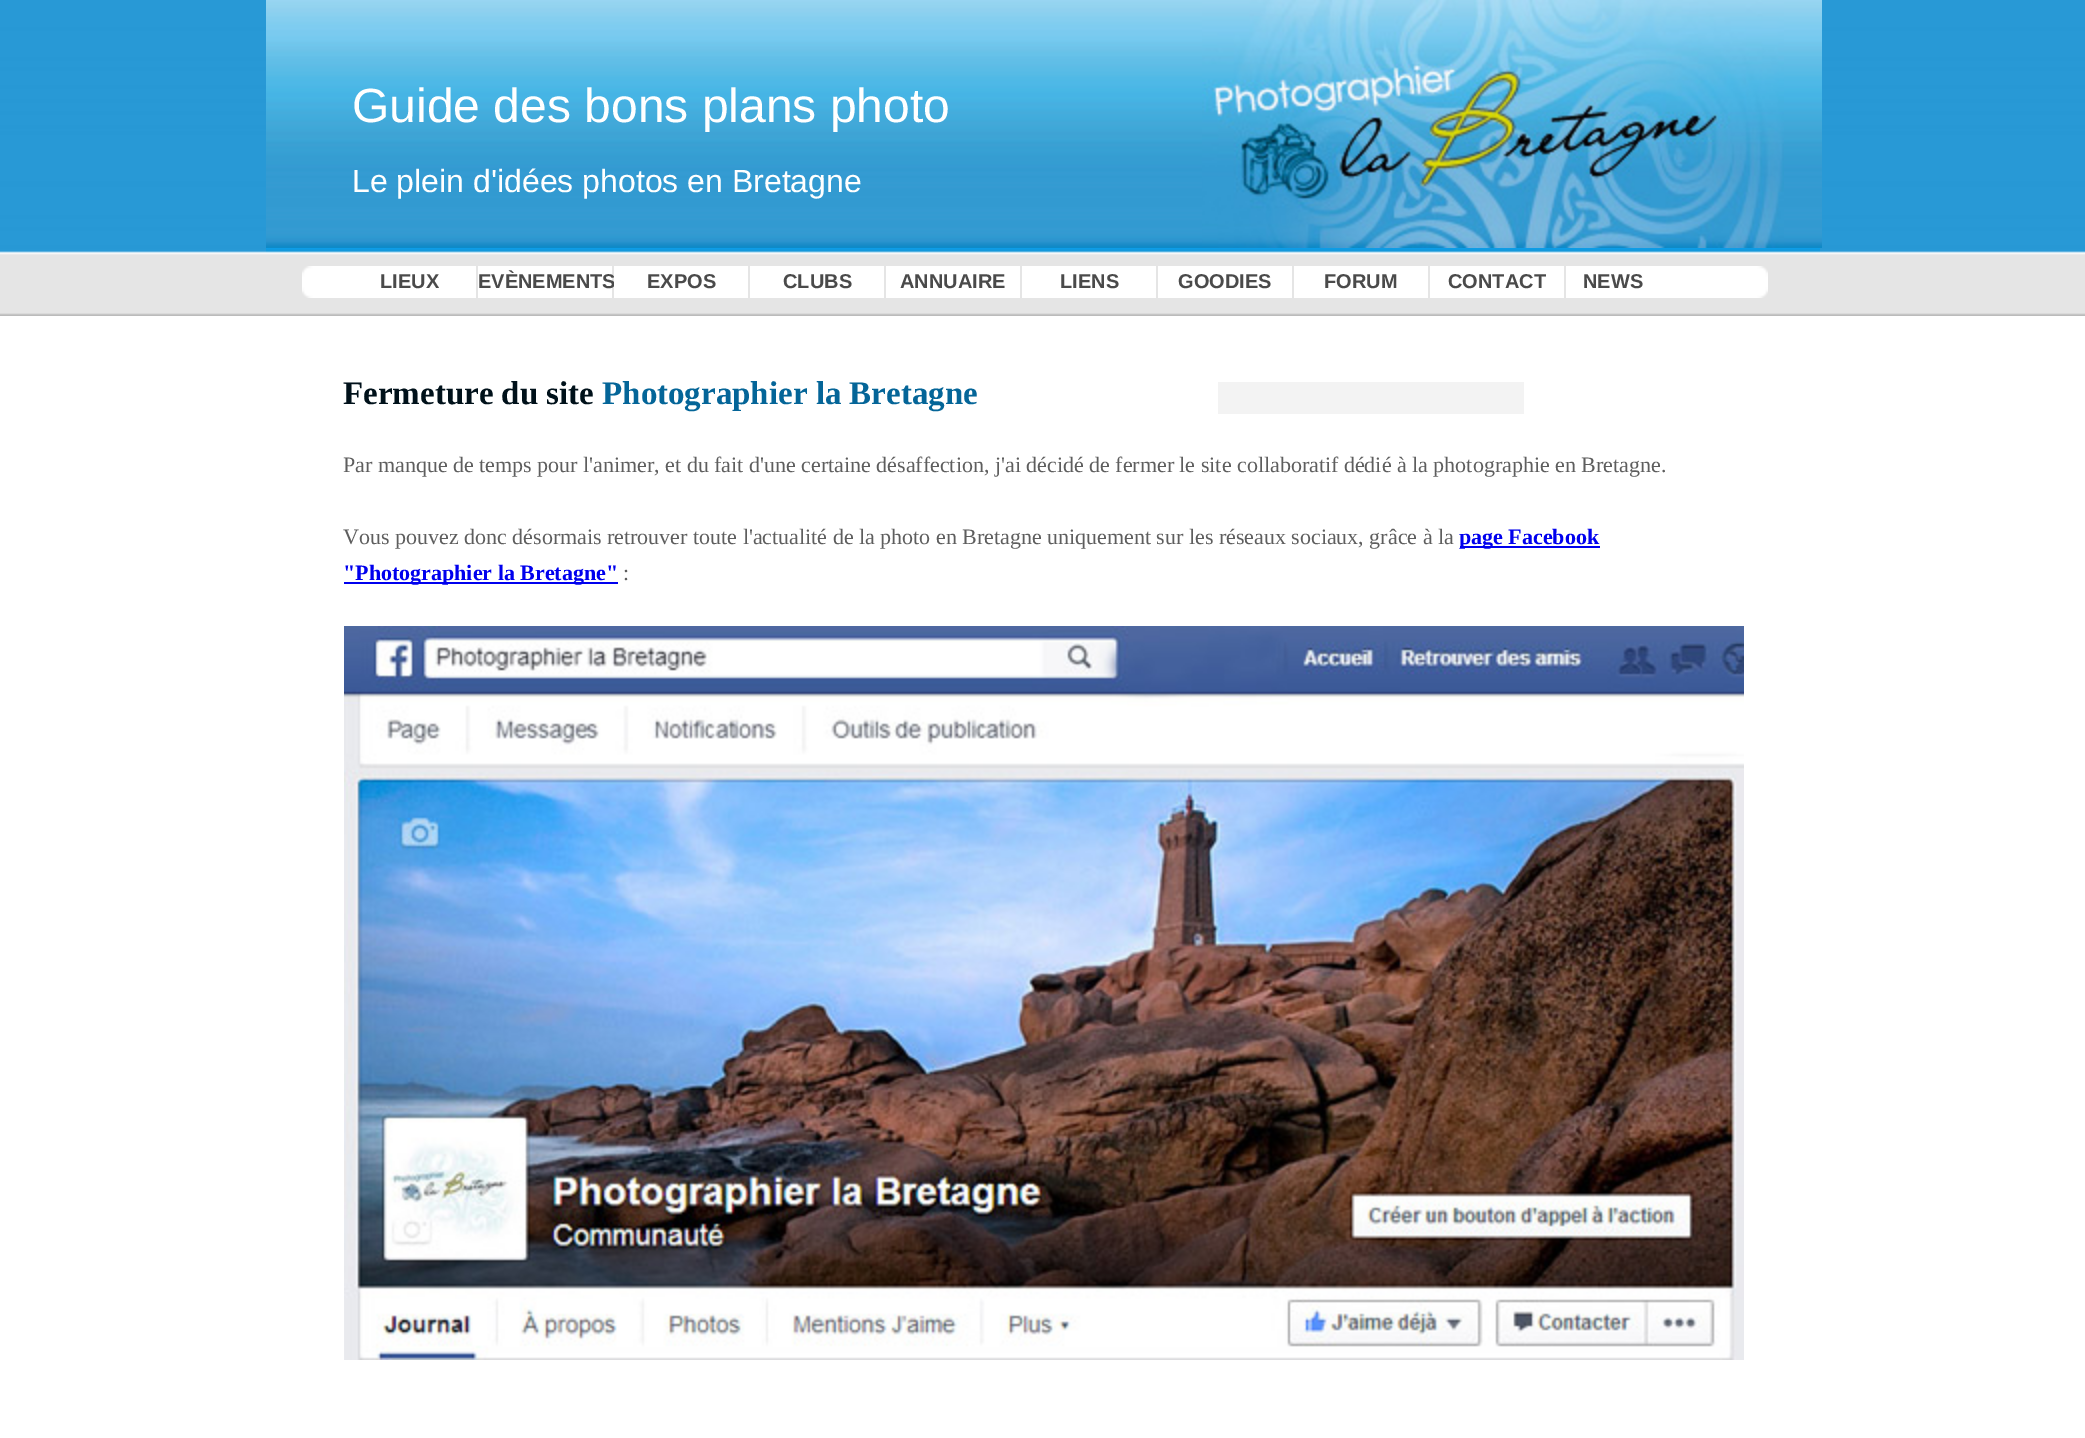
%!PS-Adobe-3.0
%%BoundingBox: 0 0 2085 1438
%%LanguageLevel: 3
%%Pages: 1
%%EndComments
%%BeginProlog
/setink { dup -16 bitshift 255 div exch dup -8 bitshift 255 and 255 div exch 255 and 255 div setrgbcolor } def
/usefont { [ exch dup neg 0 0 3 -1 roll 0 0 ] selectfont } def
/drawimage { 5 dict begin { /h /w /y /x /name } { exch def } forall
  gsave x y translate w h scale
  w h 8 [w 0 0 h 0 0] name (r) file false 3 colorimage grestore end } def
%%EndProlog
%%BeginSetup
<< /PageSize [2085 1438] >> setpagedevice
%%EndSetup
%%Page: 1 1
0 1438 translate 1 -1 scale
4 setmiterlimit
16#FFFFFF setink
0 0 2085 1438 rectfill
(img1.raw) 0 0 2085 316 drawimage
(img2.raw) 266 248 1554 68 drawimage
(img3.raw) 266 0 1556 248 drawimage
/LiberationSans-Regular 48 usefont
352 122 moveto (Guide des bons plans photo) show
/LiberationSans-Regular 32 usefont
352 192 moveto (Le plein d'idées photos en Bretagne) show
(img4.raw) 1202 0 582 248 drawimage
(img5.raw) 302 266 40 32 drawimage
342 266 134 32 rectfill
/LiberationSans-Bold 20 usefont
16#4A4A4A setink
380 288 moveto (LIEUX) show
16#FFFFFF setink
478 266 134 32 rectfill
16#4A4A4A setink
478 288 moveto (EVÈNEMENTS) show
16#FFFFFF setink
614 266 134 32 rectfill
16#4A4A4A setink
647 288 moveto (EXPOS) show
16#FFFFFF setink
750 266 134 32 rectfill
16#4A4A4A setink
783 288 moveto (CLUBS) show
16#FFFFFF setink
886 266 134 32 rectfill
16#4A4A4A setink
900 288 moveto (ANNUAIRE) show
16#FFFFFF setink
1022 266 134 32 rectfill
16#4A4A4A setink
1060 288 moveto (LIENS) show
16#FFFFFF setink
1158 266 134 32 rectfill
16#4A4A4A setink
1178 288 moveto (GOODIES) show
16#FFFFFF setink
1294 266 134 32 rectfill
16#4A4A4A setink
1324 288 moveto (FORUM) show
16#FFFFFF setink
1430 266 134 32 rectfill
16#4A4A4A setink
1448 288 moveto (CONTACT) show
16#FFFFFF setink
1566 266 96 32 rectfill
16#4A4A4A setink
1583 288 moveto (NEWS) show
16#FFFFFF setink
1662 266 26 32 rectfill
(img6.raw) 1688 266 80 32 drawimage
16#F3F3F3 setink
1218 382 306 32 rectfill
/LiberationSerif-Bold 33 usefont
16#00111A setink
343 404 moveto (Fermeture du site) show
16#046598 setink
602 404 moveto (Photographier la Bretagne) show
/LiberationSerif-Regular 22 usefont
16#5E5E5E setink
343 472 moveto (Par manque de temps pour l'animer, et du fait d'une certaine désaffection, j'ai décidé de fermer le site collaboratif dédié à la photographie en Bretagne.) show
343 544 moveto (Vous pouvez donc désormais retrouver toute l'actualité de la photo en Bretagne uniquement sur les réseaux sociaux, grâce à la) show
16#0000EE setink
1460 546 140 2 rectfill
/LiberationSerif-Bold 22 usefont
1459 544 moveto (page Facebook) show
344 582 274 2 rectfill
343 580 moveto ("Photographier la Bretagne") show
/LiberationSerif-Regular 22 usefont
16#5E5E5E setink
623 580 moveto (:) show
(img7.raw) 344 626 1400 734 drawimage
showpage
%%EOF
